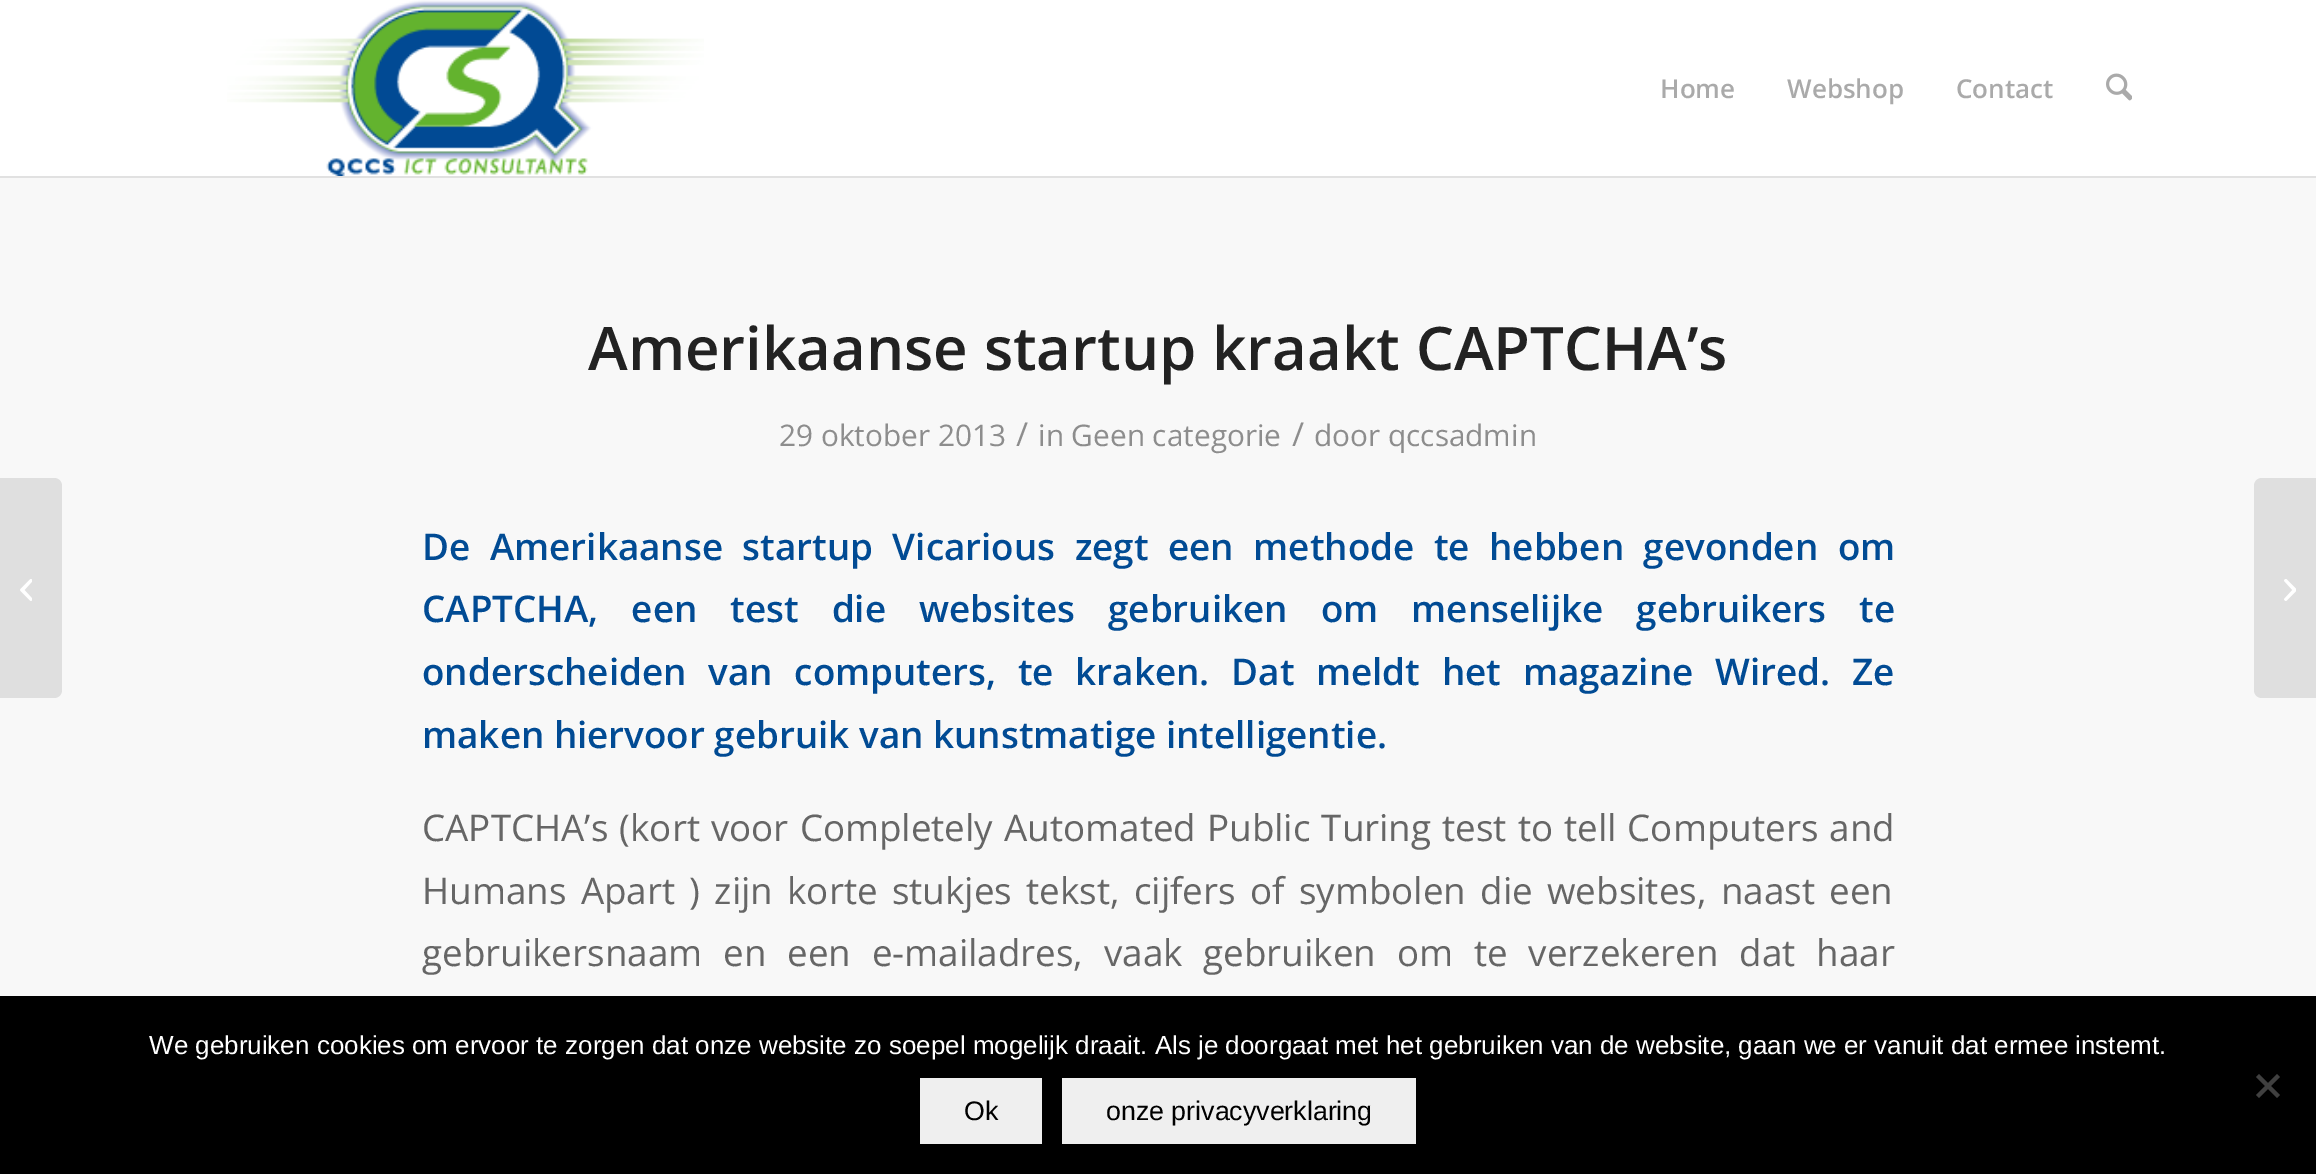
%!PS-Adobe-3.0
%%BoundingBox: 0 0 2316 1174
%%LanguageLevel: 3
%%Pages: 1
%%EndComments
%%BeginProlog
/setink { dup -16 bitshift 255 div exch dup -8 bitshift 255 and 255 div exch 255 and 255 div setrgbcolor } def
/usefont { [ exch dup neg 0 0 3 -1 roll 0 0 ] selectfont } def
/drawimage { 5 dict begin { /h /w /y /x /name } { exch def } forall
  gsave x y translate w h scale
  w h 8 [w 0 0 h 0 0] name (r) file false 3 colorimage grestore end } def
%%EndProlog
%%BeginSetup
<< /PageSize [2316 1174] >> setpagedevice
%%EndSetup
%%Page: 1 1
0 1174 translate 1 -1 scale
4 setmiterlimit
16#F8F8F8 setink
0 0 2316 1174 rectfill
16#FFFFFF setink
0 0 2316 176 rectfill
16#E1E1E1 setink
0 176 2316 2 rectfill
(img1.raw) 227 0 477 176 drawimage
/OpenSans-SemiBold 26 usefont
16#AAAAAA setink
[
    [(Home) 1660 98]
    [(Webshop) 1787 98]
    [(Contact) 1956 98]
] { aload pop moveto show } forall
(img2.raw) 2106 73 26 28 drawimage
16#DFDFDF setink
0 478 moveto 54 478 lineto 58.5 478 62 481.5 62 486 curveto 62 690 lineto 62 694.5 58.5 698 54 698 curveto 0 698 lineto closepath fill
(img3.raw) 20 579 12 22 drawimage
/OpenSans-SemiBold 60 usefont
16#222222 setink
588 370 moveto (Amerikaanse startup kraakt CAPTCHA’s) show
/OpenSans-Regular 29.75 usefont
16#8D8D8D setink
779 446 moveto (29 oktober 2013) show
/OpenSans-Regular 33 usefont
1016 446 moveto (/) show
/OpenSans-Regular 29.75 usefont
1038 446 moveto (in Geen categorie) show
/OpenSans-Regular 33 usefont
1292 446 moveto (/) show
/OpenSans-Regular 29.75 usefont
1314 446 moveto (door qccsadmin) show
/OpenSans-SemiBold 36.8 usefont
16#014B94 setink
422 560 moveto 10 0 32 (De Amerikaanse startup Vicarious zegt een methode te hebben gevonden om) widthshow
422 622 moveto 23.5 0 32 (CAPTCHA, een test die websites gebruiken om menselijke gebruikers te) widthshow
422 685 moveto 12.25 0 32 (onderscheiden van computers, te kraken. Dat meldt het magazine) widthshow
1715 685 moveto (Wired) show
1820 685 moveto 12 0 32 (. Ze) widthshow
422 748 moveto (maken hiervoor gebruik van kunstmatige intelligentie.) show
/OpenSans-Regular 36.8 usefont
16#666666 setink
422 841 moveto 1.5 0 32 (CAPTCHA’s \(kort voor Completely Automated Public Turing test to tell Computers and) widthshow
422 904 moveto 4.75 0 32 (Humans Apart \) zijn korte stukjes tekst, cijfers of symbolen die websites, naast een) widthshow
422 966 moveto 11.25 0 32 (gebruikersnaam en een e-mailadres, vaak gebruiken om te verzekeren dat haar) widthshow
16#DFDFDF setink
2262 478 moveto 2316 478 lineto 2316 698 lineto 2262 698 lineto 2257.5 698 2254 694.5 2254 690 curveto 2254 486 lineto 2254 481.5 2257.5 478 2262 478 curveto closepath fill
(img4.raw) 2284 579 12 22 drawimage
16#000000 setink
0 996 2316 178 rectfill
/LiberationSans-Regular 26 usefont
16#FFFFFF setink
149 1054 moveto (We gebruiken cookies om ervoor te zorgen dat onze website zo soepel mogelijk draait. Als je doorgaat met het gebruiken van de website, gaan we er vanuit dat ermee instemt.) show
16#404040 setink
2277 1074 moveto 2280 1077 lineto 2259 1098 lineto 2256 1095 lineto closepath fill
2256 1077 moveto 2259 1074 lineto 2280 1095 lineto 2277 1098 lineto closepath fill
16#EFEFEF setink
920 1078 122 66 rectfill
/LiberationSans-Regular 26.75 usefont
16#000000 setink
964 1120 moveto (Ok) show
16#EFEFEF setink
1062 1078 354 66 rectfill
16#000000 setink
1106 1120 moveto (onze privacyverklaring) show
showpage
%%EOF
